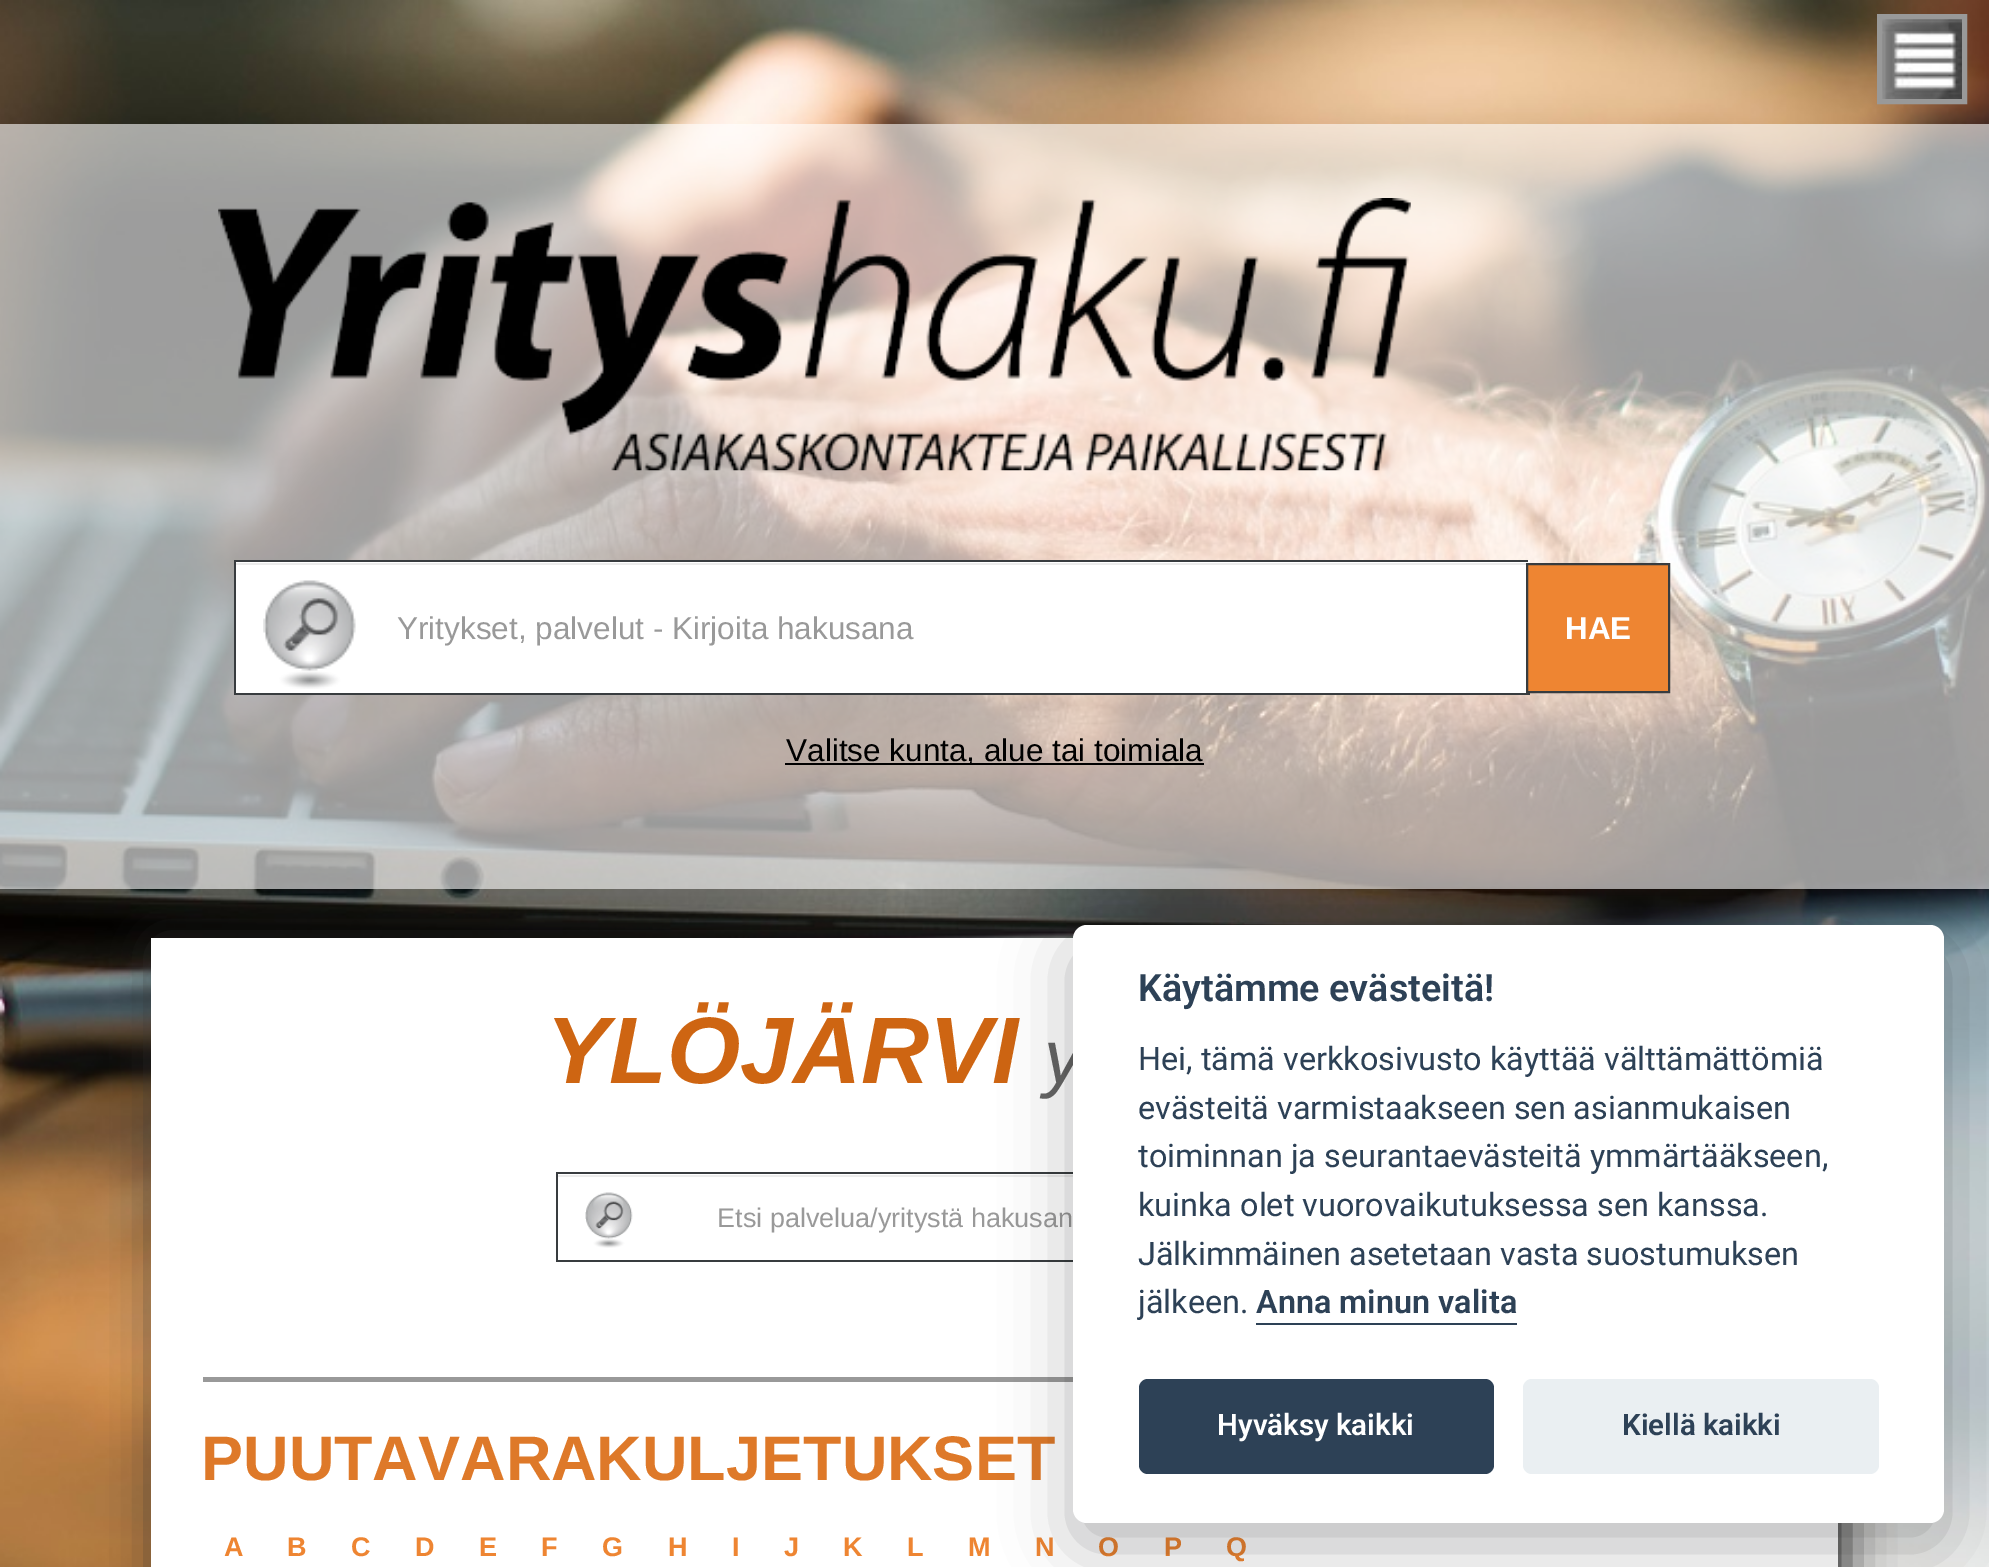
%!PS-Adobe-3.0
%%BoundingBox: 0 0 1989 1567
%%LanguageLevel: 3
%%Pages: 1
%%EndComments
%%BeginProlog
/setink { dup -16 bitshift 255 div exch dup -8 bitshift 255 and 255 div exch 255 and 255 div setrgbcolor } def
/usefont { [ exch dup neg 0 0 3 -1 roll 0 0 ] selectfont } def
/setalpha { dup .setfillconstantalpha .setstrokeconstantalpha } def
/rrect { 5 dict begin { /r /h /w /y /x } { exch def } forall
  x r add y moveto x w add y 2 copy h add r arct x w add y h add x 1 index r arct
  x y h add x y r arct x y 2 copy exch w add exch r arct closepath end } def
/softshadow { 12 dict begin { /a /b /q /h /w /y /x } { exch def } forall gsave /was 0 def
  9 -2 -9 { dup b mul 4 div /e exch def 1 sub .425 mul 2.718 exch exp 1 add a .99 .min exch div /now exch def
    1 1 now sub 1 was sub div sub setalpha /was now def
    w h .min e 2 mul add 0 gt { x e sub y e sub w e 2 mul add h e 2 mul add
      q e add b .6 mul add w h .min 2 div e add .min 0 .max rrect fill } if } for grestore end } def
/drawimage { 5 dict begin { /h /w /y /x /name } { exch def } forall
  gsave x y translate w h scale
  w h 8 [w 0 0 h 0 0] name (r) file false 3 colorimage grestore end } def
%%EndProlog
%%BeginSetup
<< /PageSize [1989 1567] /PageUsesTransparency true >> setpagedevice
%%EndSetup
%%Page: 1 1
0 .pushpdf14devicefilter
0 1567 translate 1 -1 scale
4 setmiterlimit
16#FFFFFF setink
0 0 1989 1567 rectfill
(img1.raw) 0 0 1989 1567 drawimage
(img2.raw) 1882 19 80 80 drawimage
16#999999 setink
5 setlinewidth
1879.5 16.5 85 85 rectstroke
0.6 setalpha
16#FFFFFF setink
0 124 1989 765 rectfill
1 setalpha
(img3.raw) 218 198 1193 273 drawimage
236 562 1292 131 rectfill
(img4.raw) 263 580 93 109 drawimage
[
    [236 563 1292 2 16#ECECEC]
    [234 560 1296 2 16#383C3F]
    [1528 560 2 3 16#FFFFFF]
    [234 693 1296 2 16#383C3F]
    [234 560 2 135 16#383C3F]
] { aload pop setink rectfill } forall
/LiberationSans-Regular 31.5 usefont
16#999999 setink
397 639 moveto (Yritykset, palvelut - Kirjoita hakusana) show
16#EE8532 setink
1527 564 moveto 1669 564 lineto 1669 692 lineto 1527 692 lineto closepath gsave fill grestore
16#383C3F setink
2 setlinewidth
stroke
/LiberationSans-Bold 31.5 usefont
16#FFFFFF setink
1565 639 moveto (HAE) show
16#000000 setink
785 763 419 2 rectfill
/LiberationSans-Regular 31.5 usefont
786 761 moveto (Valitse kunta, alue tai toimiala) show
16#333333 setink
160 947 1687 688 0 22.5 1 softshadow
16#FFFFFF setink
151 938 1687 629 rectfill
16#999999 setink
203 1377 870 5 rectfill
/LiberationSans-BoldItalic 94.5 usefont
16#CE6512 setink
546 1083 moveto (YLÖJÄRVI) show
/LiberationSans-Italic 76 usefont
16#666666 setink
1044 1083 moveto (y) show
(img5.raw) 585 1192 48 56 drawimage
[
    [558 1175 515 2 16#ECECEC]
    [556 1172 517 2 16#383C3F]
    [556 1260 517 2 16#383C3F]
    [556 1172 2 90 16#383C3F]
] { aload pop setink rectfill } forall
/LiberationSans-Regular 27 usefont
16#999999 setink
717 1227 moveto (Etsi palvelua/yritystä hakusan) show
/LiberationSans-Bold 63 usefont
16#DE7929 setink
201 1480 moveto (PUUTAVARAKULJETUKSET) show
/LiberationSans-Bold 27 usefont
16#EE8532 setink
[
    [(A) 224 1556]
    [(B) 287 1556]
    [(C) 351 1556]
    [(D) 415 1556]
    [(E) 479 1556]
    [(F) 541 1556]
    [(G) 602 1556]
    [(H) 668 1556]
    [(I) 732 1556]
    [(J) 784 1556]
    [(K) 843 1556]
    [(L) 907 1556]
    [(M) 968 1556]
    [(N) 1035 1556]
    [(O) 1098 1556]
    [(P) 1164 1556]
    [(Q) 1226 1556]
] { aload pop moveto show } forall
16#020203 setink
1073 947 871 599 14 34 0.28 softshadow
16#FFFFFF setink
1073 925 871 598 14 rrect fill
/Roboto-SemiBold 37.75 usefont
16#2D4156 setink
1138 1001 moveto (Käytämme evästeitä!) show
/Roboto-Regular 32.4 usefont
[
    [(Hei, tämä verkkosivusto käyttää välttämättömiä) 1138 1070]
    [(evästeitä varmistaakseen sen asianmukaisen) 1138 1119]
    [(toiminnan ja seurantaevästeitä ymmärtääkseen,) 1138 1167]
    [(kuinka olet vuorovaikutuksessa sen kanssa.) 1138 1216]
    [(Jälkimmäinen asetetaan vasta suostumuksen) 1138 1265]
    [(jälkeen.) 1138 1313]
] { aload pop moveto show } forall
/Roboto-SemiBold 32.4 usefont
1256 1313 moveto (Anna minun valita) show
1256 1323 261 2 rectfill
1139 1379 355 95 9 rrect fill
/Roboto-SemiBold 29.5 usefont
16#FFFFFF setink
1217 1435 moveto (Hyväksy kaikki) show
16#EAEFF2 setink
1523 1379 356 95 9 rrect fill
16#2D4156 setink
1622 1435 moveto (Kiellä kaikki) show
.poppdf14devicefilter showpage
%%EOF
